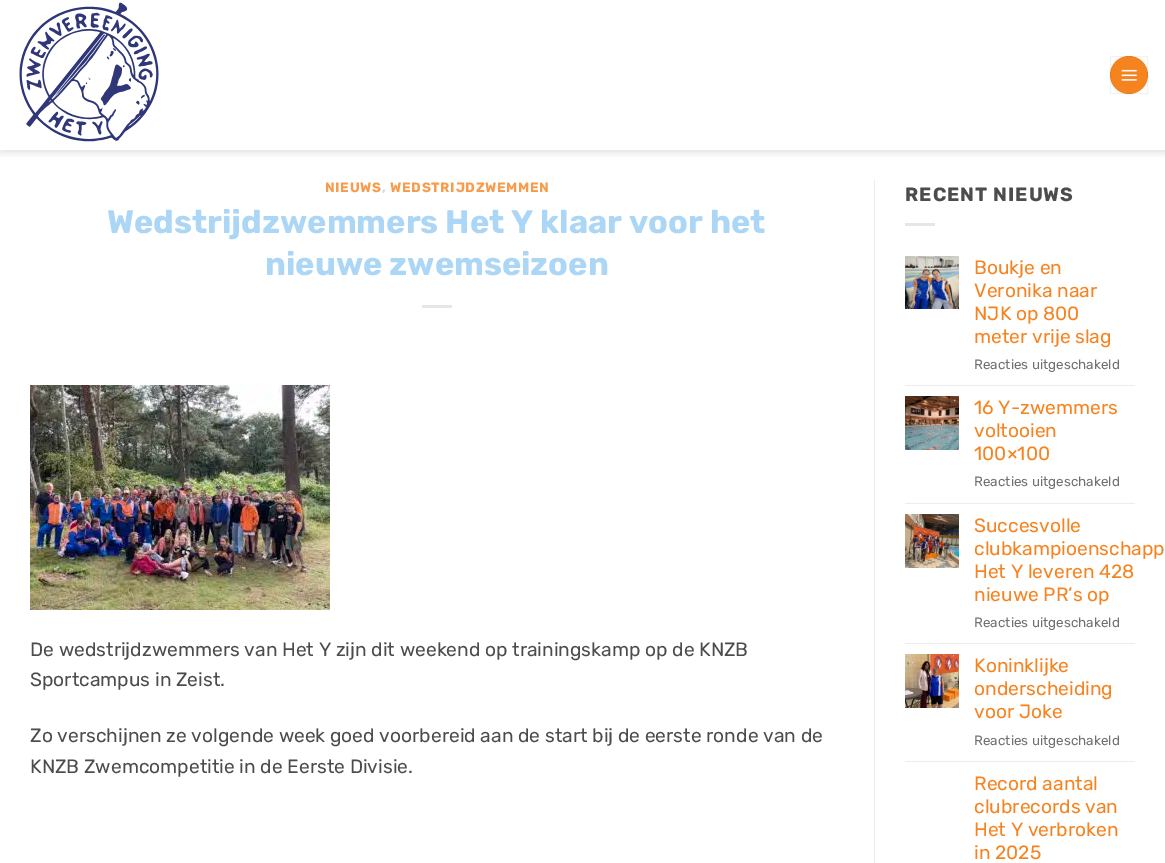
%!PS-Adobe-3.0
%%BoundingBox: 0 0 1165 863
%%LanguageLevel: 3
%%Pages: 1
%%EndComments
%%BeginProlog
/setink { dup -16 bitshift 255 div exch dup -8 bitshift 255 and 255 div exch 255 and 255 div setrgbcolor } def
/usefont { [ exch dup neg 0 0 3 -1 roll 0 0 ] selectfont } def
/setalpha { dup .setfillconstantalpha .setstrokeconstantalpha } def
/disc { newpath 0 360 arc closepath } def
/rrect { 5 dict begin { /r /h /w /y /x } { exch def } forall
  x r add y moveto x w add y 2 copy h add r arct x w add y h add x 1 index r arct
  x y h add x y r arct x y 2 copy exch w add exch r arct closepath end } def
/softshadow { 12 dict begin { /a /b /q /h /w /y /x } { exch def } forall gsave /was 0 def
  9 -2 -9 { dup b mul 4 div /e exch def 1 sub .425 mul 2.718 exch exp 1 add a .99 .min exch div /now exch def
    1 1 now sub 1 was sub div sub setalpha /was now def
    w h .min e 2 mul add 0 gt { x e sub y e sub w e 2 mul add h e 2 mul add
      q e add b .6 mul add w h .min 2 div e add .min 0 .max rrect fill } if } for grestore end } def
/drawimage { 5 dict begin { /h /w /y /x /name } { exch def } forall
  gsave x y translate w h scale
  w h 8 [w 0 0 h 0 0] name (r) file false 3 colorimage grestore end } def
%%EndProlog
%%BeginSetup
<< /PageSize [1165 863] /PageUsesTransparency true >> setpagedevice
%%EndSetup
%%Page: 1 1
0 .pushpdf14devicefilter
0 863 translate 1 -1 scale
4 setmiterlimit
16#FFFFFF setink
0 0 1165 863 rectfill
gsave
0 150 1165 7 rectclip
16#000000 setink
1 1 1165 150 0 5 0.15 softshadow
grestore
(img1.raw) 19 2 140 140 drawimage
16#F58320 setink
1129 75 19 disc fill
0.05 setalpha
16#000000 setink
1110.5 56.5 37 37 rectstroke
1 setalpha
(img2.raw) 1121 69 16 12 drawimage
/Rubik-Bold 13.5 usefont
16#F79C4D setink
325 192 moveto 0.7 0 (NIEUWS) ashow
16#BDDEF7 setink
382 192 moveto 0.7 0 (,) ashow
16#F79C4D setink
390 192 moveto 0.7 0 (WEDSTRIJDZWEMMEN) ashow
/Rubik-Bold 32.6 usefont
16#ACD6F5 setink
107 233 moveto (Wedstrijdzwemmers Het Y klaar voor het) show
265 275 moveto (nieuwe zwemseizoen) show
16#E6E6E6 setink
422 305 30 3 rectfill
(img3.raw) 30 385 300 225 drawimage
/Rubik-Regular 19.2 usefont
16#4D4C4D setink
[
    [(De wedstrijdzwemmers van Het Y zijn dit weekend op trainingskamp op de KNZB) 30 656]
    [(Sportcampus in Zeist.) 30 686]
    [(Zo verschijnen ze volgende week goed voorbereid aan de start bij de eerste ronde van de) 30 742]
    [(KNZB Zwemcompetitie in de Eerste Divisie.) 30 773]
] { aload pop moveto show } forall
16#ECECEC setink
874 180 1 683 rectfill
/Rubik-Bold 19.2 usefont
16#4D4C4D setink
905 201 moveto 1 0 (RECENT NIEUWS) ashow
16#E6E6E6 setink
905 223 30 3 rectfill
(img4.raw) 905 256 54 53 drawimage
/Rubik-Regular 19.2 usefont
16#F58320 setink
[
    [(Boukje en) 974 274]
    [(Veronika naar) 974 297]
    [(NJK op 800) 974 320]
    [(meter vrije slag) 974 343]
] { aload pop moveto show } forall
/Rubik-Regular 13.5 usefont
16#717071 setink
974 369 moveto (Reacties uitgeschakeld) show
16#ECECEC setink
905 385 230 1 rectfill
(img5.raw) 905 396 54 54 drawimage
/Rubik-Regular 19.2 usefont
16#F58320 setink
[
    [(16 Y-zwemmers) 974 414]
    [(voltooien) 974 437]
    [(100×100) 974 460]
] { aload pop moveto show } forall
/Rubik-Regular 13.5 usefont
16#717071 setink
974 486 moveto (Reacties uitgeschakeld) show
16#ECECEC setink
905 503 230 1 rectfill
(img6.raw) 905 514 54 54 drawimage
/Rubik-Regular 19.2 usefont
16#F58320 setink
[
    [(Succesvolle) 974 532]
    [(clubkampioenschapp) 974 555]
    [(Het Y leveren 428) 974 578]
    [(nieuwe PR’s op) 974 601]
] { aload pop moveto show } forall
/Rubik-Regular 13.5 usefont
16#717071 setink
974 627 moveto (Reacties uitgeschakeld) show
16#ECECEC setink
905 643 230 1 rectfill
(img7.raw) 905 654 54 54 drawimage
/Rubik-Regular 19.2 usefont
16#F58320 setink
[
    [(Koninklijke) 974 672]
    [(onderscheiding) 974 695]
    [(voor Joke) 974 718]
] { aload pop moveto show } forall
/Rubik-Regular 13.5 usefont
16#717071 setink
974 745 moveto (Reacties uitgeschakeld) show
16#ECECEC setink
905 761 230 1 rectfill
/Rubik-Regular 19.2 usefont
16#F58320 setink
[
    [(Record aantal) 974 790]
    [(clubrecords van) 974 813]
    [(Het Y verbroken) 974 836]
    [(in 2025) 974 859]
] { aload pop moveto show } forall
.poppdf14devicefilter showpage
%%EOF
